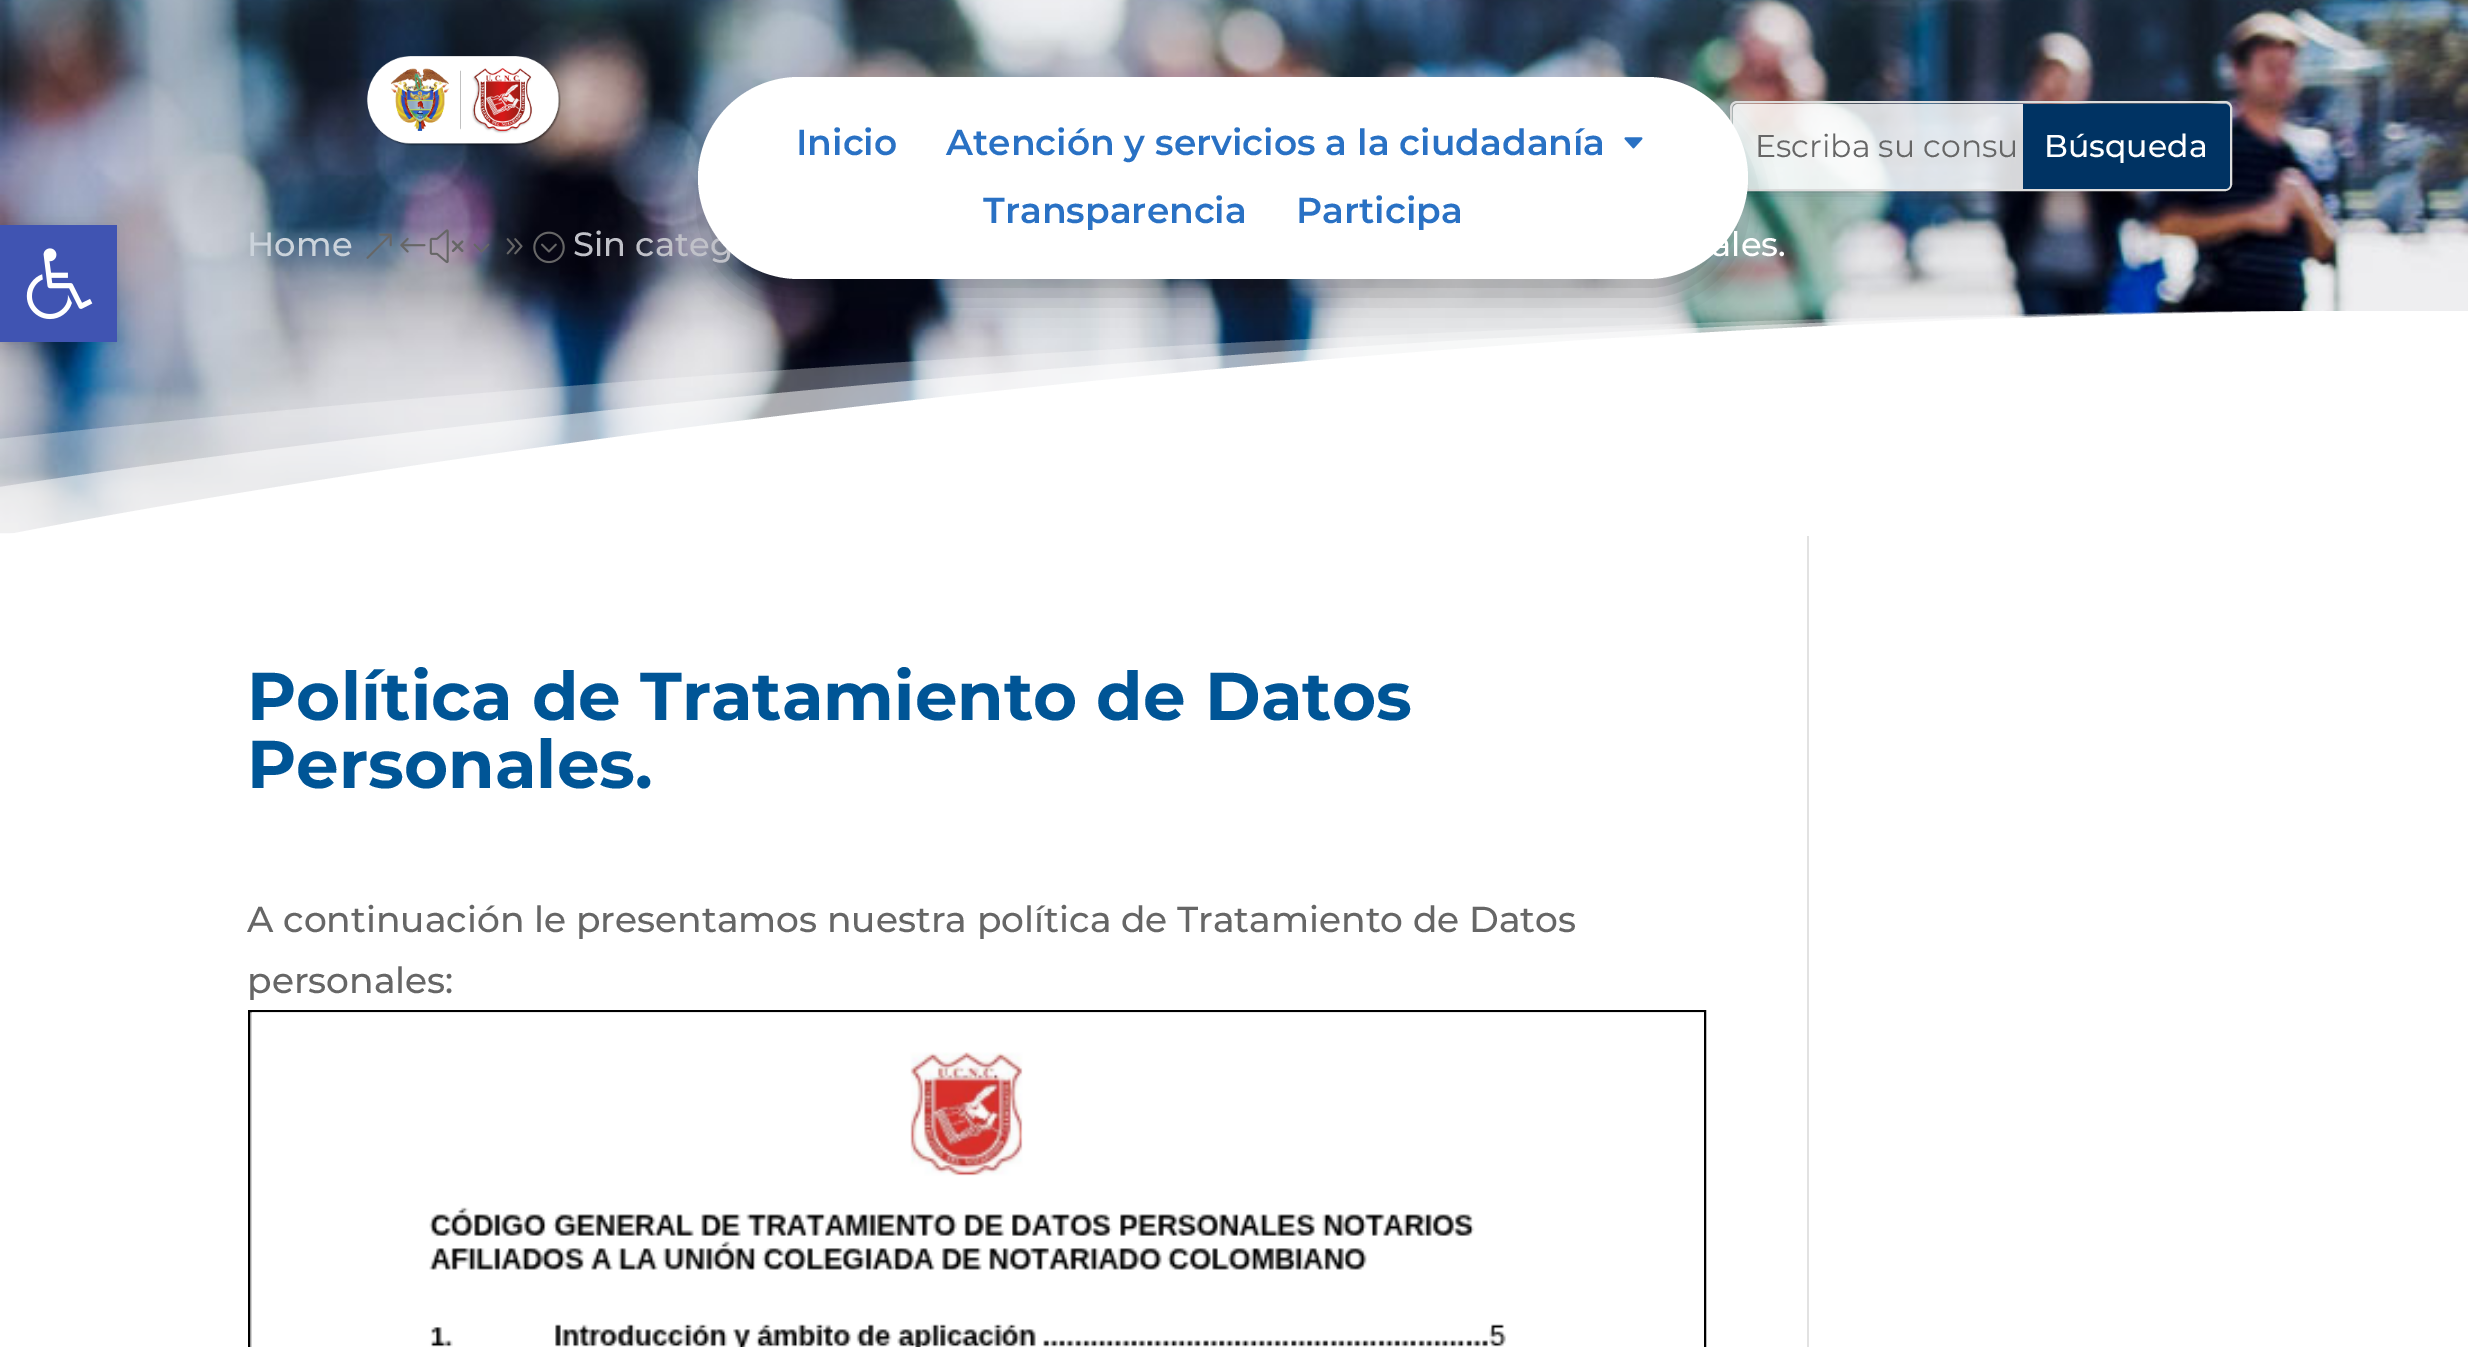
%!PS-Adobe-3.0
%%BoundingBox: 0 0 2468 1347
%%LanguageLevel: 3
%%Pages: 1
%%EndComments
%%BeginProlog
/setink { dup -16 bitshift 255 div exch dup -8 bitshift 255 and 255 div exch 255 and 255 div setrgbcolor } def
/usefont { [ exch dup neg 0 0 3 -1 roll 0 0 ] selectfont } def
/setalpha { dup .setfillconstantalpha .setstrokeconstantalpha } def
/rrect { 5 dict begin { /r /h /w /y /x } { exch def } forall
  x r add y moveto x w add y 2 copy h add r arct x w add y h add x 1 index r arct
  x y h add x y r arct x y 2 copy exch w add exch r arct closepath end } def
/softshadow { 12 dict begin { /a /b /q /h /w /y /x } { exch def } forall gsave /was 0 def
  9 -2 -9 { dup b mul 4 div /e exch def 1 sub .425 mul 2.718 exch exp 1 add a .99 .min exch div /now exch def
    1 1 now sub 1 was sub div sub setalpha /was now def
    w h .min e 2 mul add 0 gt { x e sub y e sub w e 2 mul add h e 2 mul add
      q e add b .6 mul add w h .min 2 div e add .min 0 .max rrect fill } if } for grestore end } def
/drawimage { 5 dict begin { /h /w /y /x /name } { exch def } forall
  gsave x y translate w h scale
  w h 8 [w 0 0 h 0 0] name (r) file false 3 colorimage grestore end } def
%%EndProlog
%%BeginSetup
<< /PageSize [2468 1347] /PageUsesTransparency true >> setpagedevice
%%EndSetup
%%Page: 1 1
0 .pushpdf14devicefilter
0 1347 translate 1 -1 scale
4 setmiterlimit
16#FFFFFF setink
0 0 2468 1347 rectfill
16#E2E2E2 setink
1807 533 2 814 rectfill
(img4.raw) 0 0 2468 534 drawimage
gsave
0 311 2468 225 rectclip
0.3 setalpha
16#FFFFFF setink
0 536 moveto 0 439 lineto 0 439 1105 310 2468 310 curveto 2468 536 lineto closepath fill
0.5 setalpha
0 536 moveto 0 487 lineto 0 487 1105 310 2468 310 curveto 2468 536 lineto closepath fill
1 setalpha
0 536 moveto 0 536 1105 310 2468 310 curveto 2468 536 lineto closepath fill
grestore
16#000000 setink
0 225 117 117 0 11 0.1 softshadow
16#4054B2 setink
0 225 117 117 rectfill
(img1.raw) 26 248 67 72 drawimage
(img2.raw) 367 56 194 90 drawimage
gsave
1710 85 moveto 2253 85 lineto 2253 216 lineto 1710 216 lineto closepath 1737 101 moveto 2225 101 lineto 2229 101 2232 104 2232 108 curveto 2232 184 lineto 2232 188 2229 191 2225 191 curveto 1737 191 lineto 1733 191 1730 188 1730 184 curveto 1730 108 lineto 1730 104 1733 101 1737 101 curveto closepath eoclip newpath
16#000000 setink
1735 110 493 81 2 8 0.3 softshadow
grestore
16#DDDDDD setink
2 setlinewidth
1731 102 500 88 6 rrect stroke
0.84 setalpha
16#FFFFFF setink
1733 104 497 85 5 rrect fill
1 setalpha
16#000000 setink
711 117 1024 176 88 20 0.3 softshadow
/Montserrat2-Thin 33.75 usefont
16#C0C1C8 setink
573 256 moveto (Sin categ) show
16#FFFFFF setink
698 77 1050 202 101 rrect fill
/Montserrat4-Thin 36 usefont
16#2971C4 setink
796 155 moveto (Inicio) show
946 155 moveto (Atención y servicios a la ciudadanía) show
(img3.raw) 1624 137 19 12 drawimage
983 223 moveto (Transparencia) show
1296 223 moveto (Participa) show
/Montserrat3-Thin 31.5 usefont
16#666666 setink
1755 157 moveto (Escriba su consu) show
16#003363 setink
2023 104 moveto 2225 104 lineto 2228 104 2230 106 2230 109 curveto 2230 184 lineto 2230 187 2228 189 2225 189 curveto 2023 189 lineto closepath fill
/Montserrat2-Thin 31.5 usefont
16#FFFFFF setink
2044 157 moveto (Búsqueda) show
/Montserrat2-Thin 33.75 usefont
16#CBD3DB setink
247 256 moveto (Home) show
(img5.raw) 366 229 199 35 drawimage
16#FFFFFF setink
1711 256 moveto (ales.) show
/Montserrat-Thin 67.5 usefont
16#005596 setink
247 720 moveto (Política de Tratamiento de Datos) show
247 788 moveto (Personales.) show
/Montserrat2-Thin 36 usefont
16#666666 setink
247 932 moveto (A continuación le presentamos nuestra política de Tratamiento de Datos) show
247 993 moveto (personales:) show
16#D3D3D3 setink
249 1011 moveto 1705 1011 lineto 1705 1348 lineto 249 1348 lineto closepath gsave fill grestore
16#000000 setink
stroke
(img6.raw) 252 1012 1452 335 drawimage
.poppdf14devicefilter showpage
%%EOF
